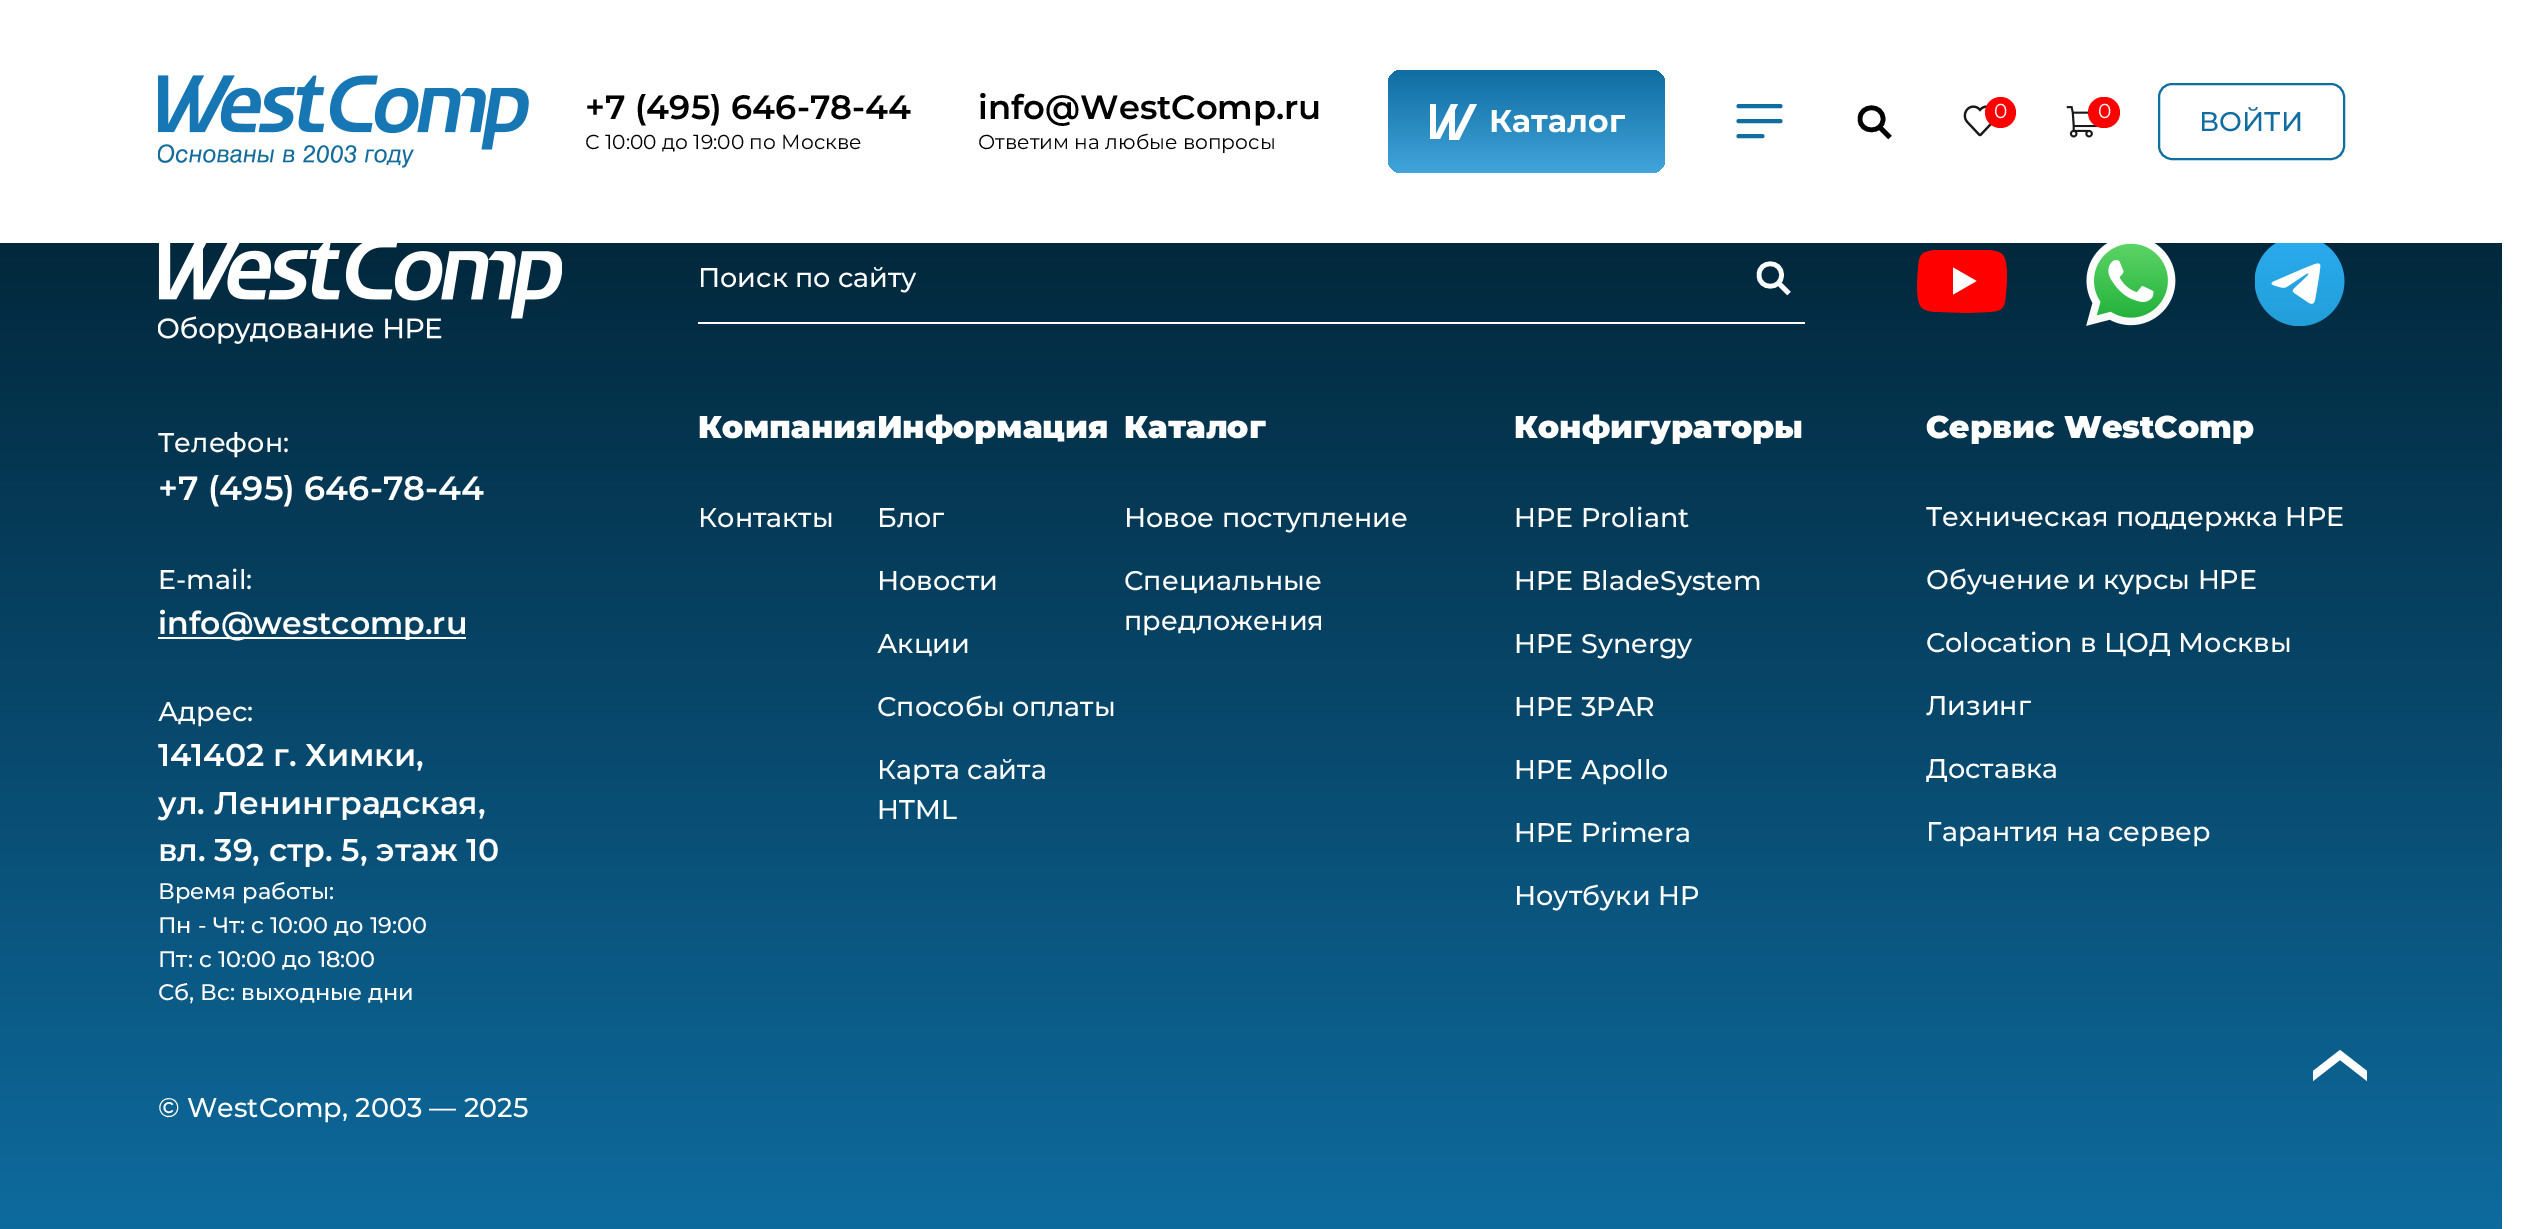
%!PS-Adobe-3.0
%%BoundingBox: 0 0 2535 1229
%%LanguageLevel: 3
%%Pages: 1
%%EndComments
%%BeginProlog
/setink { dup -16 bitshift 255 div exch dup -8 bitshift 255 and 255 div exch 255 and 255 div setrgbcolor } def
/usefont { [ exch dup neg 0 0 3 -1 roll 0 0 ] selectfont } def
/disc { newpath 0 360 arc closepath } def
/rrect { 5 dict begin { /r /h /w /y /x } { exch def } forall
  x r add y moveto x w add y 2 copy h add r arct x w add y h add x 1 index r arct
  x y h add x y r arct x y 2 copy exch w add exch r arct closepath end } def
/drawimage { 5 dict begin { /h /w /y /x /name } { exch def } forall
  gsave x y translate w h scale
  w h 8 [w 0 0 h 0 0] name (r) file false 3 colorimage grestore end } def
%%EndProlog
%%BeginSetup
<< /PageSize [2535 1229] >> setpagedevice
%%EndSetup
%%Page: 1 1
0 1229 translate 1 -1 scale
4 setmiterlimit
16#FFFFFF setink
0 0 2535 1229 rectfill
(img1.raw) 158 75 371 93 drawimage
/Montserrat-SemiBold 33.75 usefont
16#000000 setink
585 119 moveto (+7 \(495\) 646-78-44) show
/Montserrat-Regular 20.25 usefont
585 149 moveto (С 10:00 до 19:00 по Москве) show
/Montserrat-SemiBold 33.75 usefont
978 119 moveto (info@WestComp.ru) show
/Montserrat-Regular 20.25 usefont
978 149 moveto (Ответим на любые вопросы) show
gsave 1388 70 277 103 14 rrect clip newpath
<< /ShadingType 2 /ColorSpace /DeviceRGB /Coords [1527 70 1527 173] /Extend [true true] /Function << /FunctionType 2 /Domain [0 1] /C0 [0.059 0.427 0.631] /C1 [0.255 0.643 0.859] /N 1 >> >> shfill grestore
16#FFFFFF setink
1449 140 moveto 1449 121 lineto 1440 139 lineto 1430 139 lineto 1430 104 lineto 1436 104 lineto 1436 134 lineto 1451 104 lineto 1458 104 lineto 1455 110 lineto 1455 134 lineto 1470 104 lineto 1477 104 lineto 1459 140 lineto closepath fill
/Montserrat-Bold 31.5 usefont
1489 132 moveto (Каталог) show
16#0F6DA1 setink
4 setlinewidth
1 setlinecap
1738.5 106 moveto 1780.5 106 lineto 1738.5 121 moveto 1780.5 121 lineto 1738.5 136 moveto 1762.5 136 lineto stroke
16#000000 setink
4.6 setlinewidth
0 setlinecap
1890 137.5 moveto 1879.5 127 lineto 1860 119 moveto 1860 133.5 1883 133.5 1883 119 curveto 1883 104 1860 104 1860 119 curveto closepath stroke
(img2.raw) 1963 105 29 32 drawimage
16#FF0000 setink
2000.5 112.5 15.5 disc fill
/Montserrat-Regular 20.25 usefont
16#FFFFFF setink
1994 118 moveto (0) show
(img3.raw) 2066 106 32 32 drawimage
16#FF0000 setink
2088 97 32 31 15.5 rrect fill
16#FFFFFF setink
2098 118 moveto (0) show
16#0F6DA1 setink
2 setlinewidth
2159 84 185 75 13 rrect stroke
/Montserrat-Medium 27 usefont
2199 131 moveto (ВОЙТИ) show
gsave 0 243 moveto 2502 243 lineto 2502 1229 lineto 0 1229 lineto closepath clip newpath
<< /ShadingType 2 /ColorSpace /DeviceRGB /Coords [1251 90 1251 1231] /Extend [true true] /Function << /FunctionType 2 /Domain [0 1] /C0 [0 0.114 0.176] /C1 [0.055 0.42 0.62] /N 1 >> >> shfill grestore
(img4.raw) 158 243 404 101 drawimage
16#FFFFFF setink
158 452 moveto (Телефон:) show
/Montserrat-SemiBold 33.75 usefont
158 500 moveto (+7 \(495\) 646-78-44) show
/Montserrat-Medium 27 usefont
158 589 moveto (E-mail:) show
158 637 308 2 rectfill
/Montserrat-SemiBold 31.5 usefont
158 634 moveto (info@westcomp.ru) show
/Montserrat-Medium 27 usefont
158 721 moveto (Адрес:) show
/Montserrat-SemiBold 31.5 usefont
[
    [(141402 г. Химки,) 158 766]
    [(ул. Ленинградская,) 158 814]
    [(вл. 39, стр. 5, этаж 10) 158 861]
] { aload pop moveto show } forall
/Montserrat-Medium 22.5 usefont
[
    [(Время работы:) 158 899]
    [(Пн - Чт: с 10:00 до 19:00) 158 933]
    [(Пт: с 10:00 до 18:00) 158 967]
    [(Сб, Вс: выходные дни) 158 1000]
] { aload pop moveto show } forall
/Montserrat-Medium 27 usefont
158 1117 moveto (© WestComp, 2003 — 2025) show
698 322 1107 2 rectfill
698 287 moveto (Поиск по сайту) show
16#FFFEFE setink
4.6 setlinewidth
1789 293.5 moveto 1778.5 283 lineto 1759 275 moveto 1759 290 1781.5 290 1781.5 275 curveto 1781.5 260 1759 260 1759 275 curveto closepath stroke
/Montserrat-Black 31.5 usefont
16#FFFFFF setink
698 438 moveto (КомпанияИнформация) show
/Montserrat-Medium 27 usefont
698 527 moveto (Контакты) show
/Montserrat-Black 31.5 usefont
1124 438 moveto (Каталог) show
/Montserrat-Medium 27 usefont
[
    [(Новое поступление) 1124 527]
    [(Специальные) 1124 590]
    [(предложения) 1124 630]
] { aload pop moveto show } forall
/Montserrat-Black 31.5 usefont
1514 438 moveto (Конфигураторы) show
/Montserrat-Medium 27 usefont
[
    [(HPE Proliant) 1514 527]
    [(HPE BladeSystem) 1514 590]
    [(HPE Synergy) 1514 653]
    [(HPE 3PAR) 1514 716]
    [(HPE Apollo) 1514 779]
    [(HPE Primera) 1514 842]
    [(Ноутбуки HP) 1514 905]
    [(Блог) 877 527]
    [(Новости) 877 590]
    [(Акции) 877 653]
    [(Способы оплаты) 877 716]
    [(Карта сайта) 877 779]
    [(HTML) 877 819]
] { aload pop moveto show } forall
16#FF0000 setink
2005 259 moveto 2004 256 2002 253 1998 252 curveto 1994 250 1988 250 1983 250 curveto 1957 250 lineto 1935 250 lineto 1920 252 1919 255 1918 270 curveto 1917 281 1916 292 1919 303 curveto 1920 306 1922 309 1926 310 curveto 1930 312 1936 312 1941 312 curveto 1967 313 lineto 1989 312 lineto 2004 311 2005 307 2006 292 curveto 2007 282 2008 270 2005 259 curveto fill
16#FFFFFF setink
1953 294.5 moveto 1976.5 281 lineto 1953 267.5 lineto closepath fill
(img5.raw) 2086 243 90 83 drawimage
(img6.raw) 2255 243 90 83 drawimage
/Montserrat-Black 31.5 usefont
1926 438 moveto (Сервис WestComp) show
/Montserrat-Medium 27 usefont
[
    [(Техническая поддержка HPE) 1926 526]
    [(Обучение и курсы HPE) 1926 589]
    [(Colocation в ЦОД Москвы) 1926 652]
    [(Лизинг) 1926 715]
    [(Доставка) 1926 778]
    [(Гарантия на сервер) 1926 841]
] { aload pop moveto show } forall
2367 1081 moveto 2367 1071 lineto 2340 1050 lineto 2313 1071 lineto 2313 1081 lineto 2340 1060 lineto closepath fill
showpage
%%EOF
